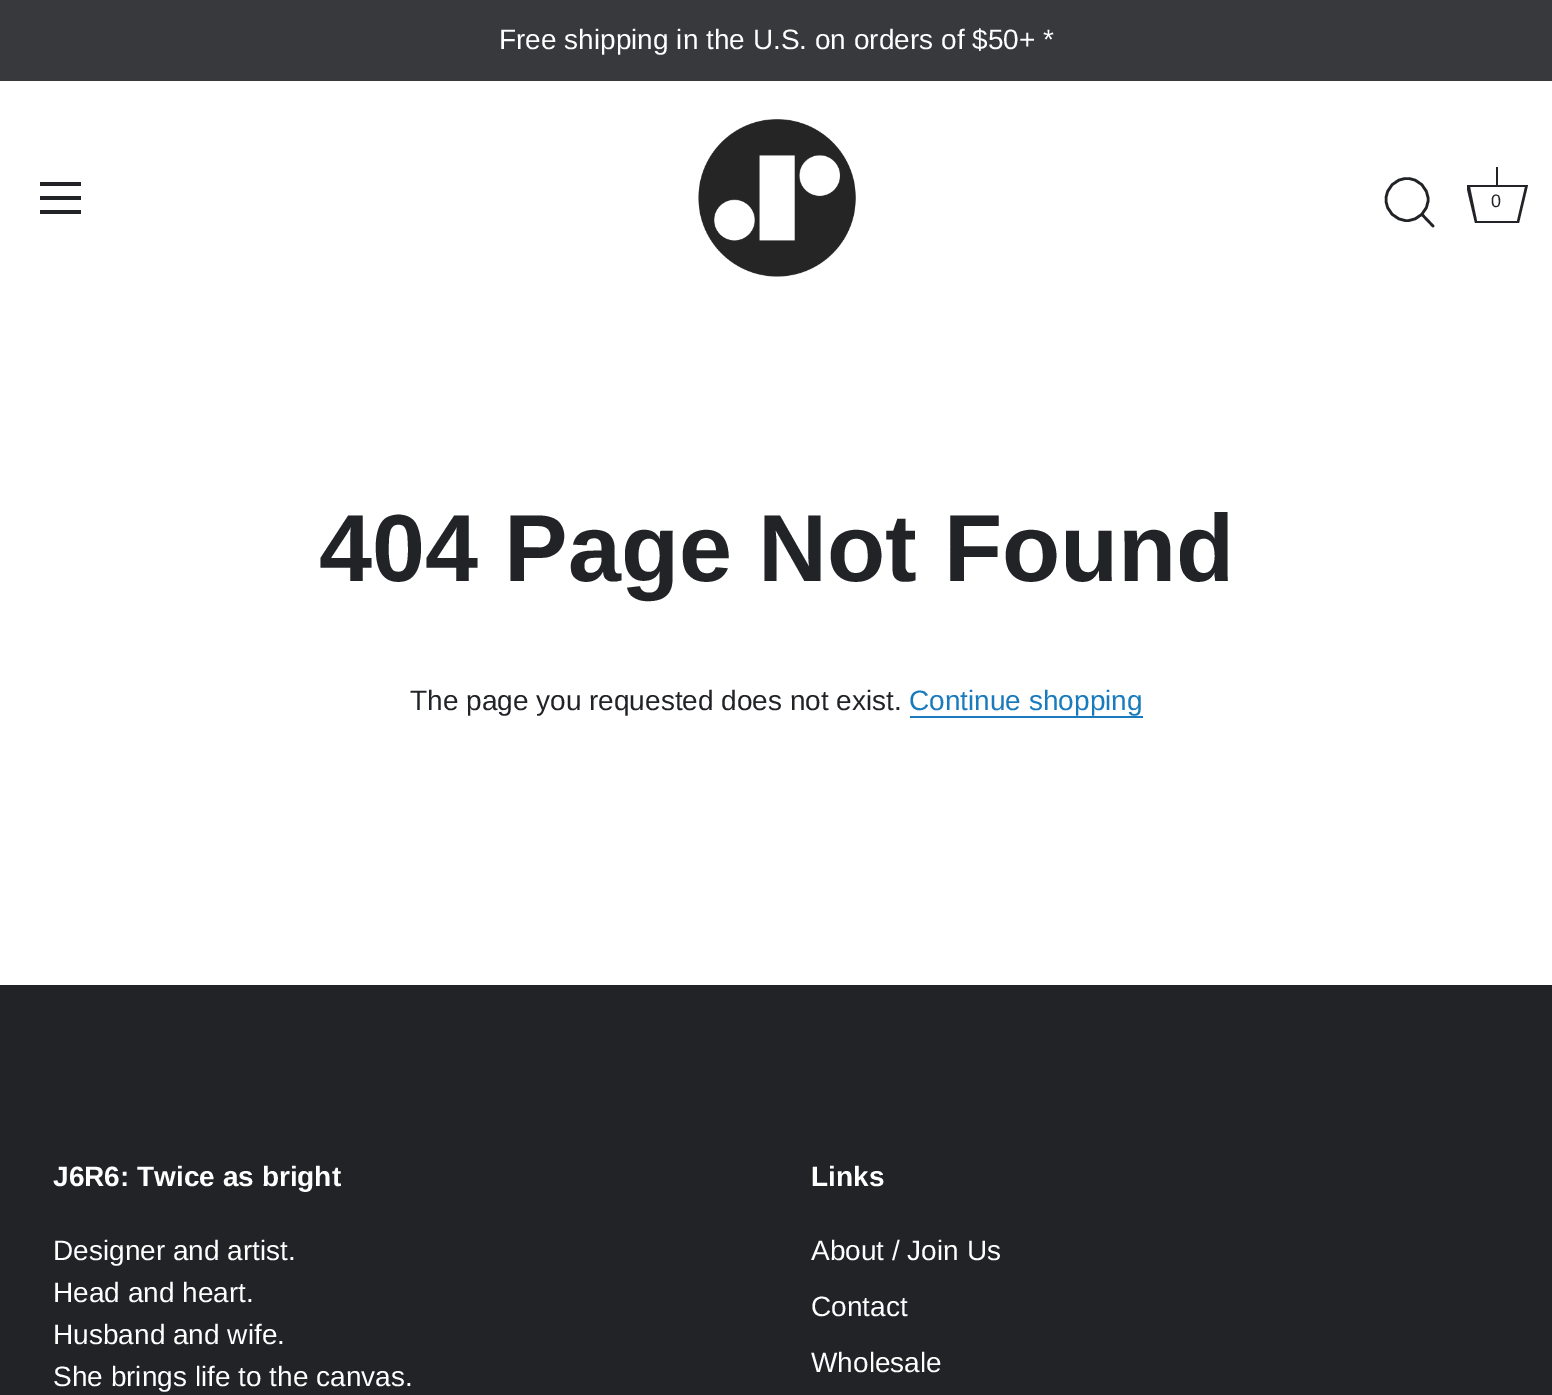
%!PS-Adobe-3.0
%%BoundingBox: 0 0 1552 1395
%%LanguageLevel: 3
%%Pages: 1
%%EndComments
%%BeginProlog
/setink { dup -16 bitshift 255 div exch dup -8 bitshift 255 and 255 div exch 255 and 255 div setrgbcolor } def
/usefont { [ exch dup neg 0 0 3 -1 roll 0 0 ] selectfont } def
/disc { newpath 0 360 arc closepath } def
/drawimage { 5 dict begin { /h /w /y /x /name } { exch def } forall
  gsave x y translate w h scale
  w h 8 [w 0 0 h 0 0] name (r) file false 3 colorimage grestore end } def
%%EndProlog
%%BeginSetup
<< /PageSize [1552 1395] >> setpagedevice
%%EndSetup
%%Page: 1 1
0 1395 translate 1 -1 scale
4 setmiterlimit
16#FFFFFF setink
0 0 1552 1395 rectfill
16#37393D setink
0 0 1552 81 rectfill
/LiberationSans-Regular 28 usefont
16#FFFFFF setink
499 49 moveto (Free shipping in the U.S. on orders of $50+ *) show
[
    [40 182 41 4 16#212327]
    [40 196 41 4 16#212327]
    [40 210 41 4 16#212327]
] { aload pop setink rectfill } forall
(img1.raw) 698 119 158 158 drawimage
2.6 setlinewidth
1407 199.5 21 disc stroke
1 setlinecap
1 setlinejoin
1433 226 moveto 1422 214.5 lineto stroke
1496 167 2 18 rectfill
gsave
1467 165 61 61 rectclip
1525 187 moveto 1517 221 lineto 1477 221 lineto 1470 187 lineto 1525 187 lineto 1528 185 moveto 1466 185 lineto 1475 223 lineto 1519 223 lineto closepath fill
grestore
/LiberationSans-Regular 18 usefont
1491 207 moveto (0) show
/LiberationSans-Bold 95.25 usefont
319 581 moveto (404 Page Not Found) show
/LiberationSans-Regular 28 usefont
410 710 moveto (The page you requested does not exist.) show
16#197BBD setink
909 710 moveto (Continue shopping) show
910 716 233 2 rectfill
16#212327 setink
0 985 1552 410 rectfill
/LiberationSans-Bold 28 usefont
16#FFFFFF setink
53 1186 moveto (J6R6: Twice as bright) show
/LiberationSans-Regular 28 usefont
[
    [(Designer and artist.) 53 1260]
    [(Head and heart.) 53 1302]
    [(Husband and wife.) 53 1344]
    [(She brings life to the canvas.) 53 1386]
] { aload pop moveto show } forall
/LiberationSans-Bold 28 usefont
811 1186 moveto (Links) show
/LiberationSans-Regular 28 usefont
[
    [(About / Join Us) 811 1260]
    [(Contact) 811 1316]
    [(Wholesale) 811 1372]
] { aload pop moveto show } forall
showpage
%%EOF
